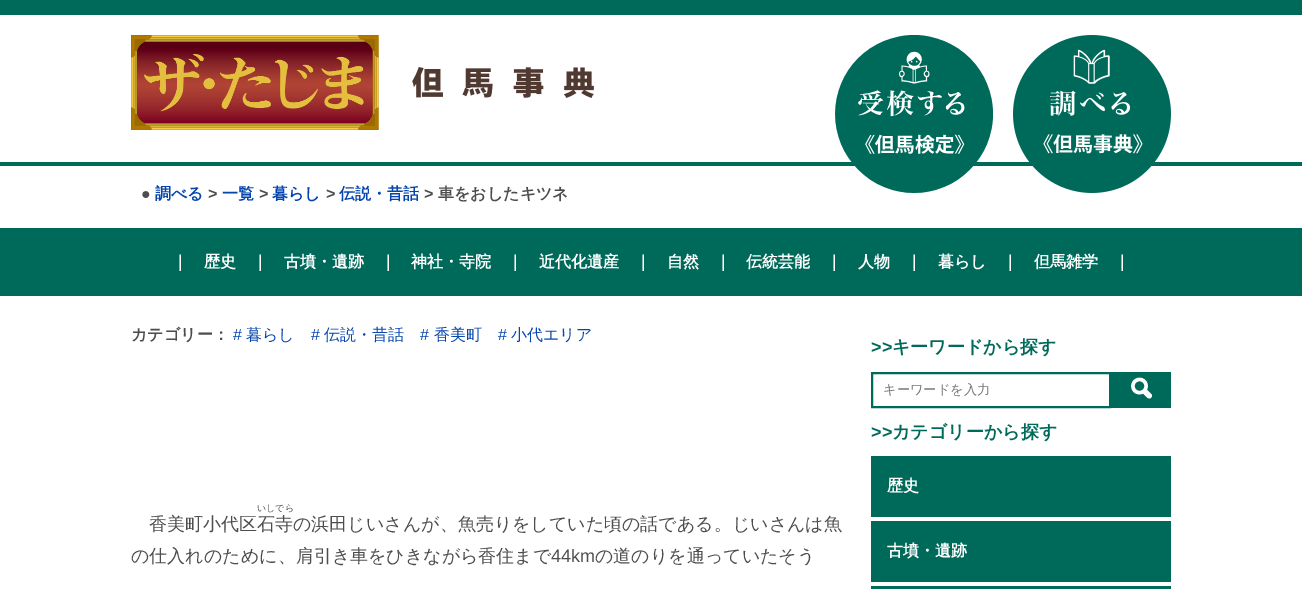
%!PS-Adobe-3.0
%%BoundingBox: 0 0 1302 589
%%LanguageLevel: 3
%%Pages: 1
%%EndComments
%%BeginProlog
/setink { dup -16 bitshift 255 div exch dup -8 bitshift 255 and 255 div exch 255 and 255 div setrgbcolor } def
/usefont { [ exch dup neg 0 0 3 -1 roll 0 0 ] selectfont } def
/drawimage { 5 dict begin { /h /w /y /x /name } { exch def } forall
  gsave x y translate w h scale
  w h 8 [w 0 0 h 0 0] name (r) file false 3 colorimage grestore end } def
%%EndProlog
%%BeginSetup
<< /PageSize [1302 589] >> setpagedevice
%%EndSetup
%%Page: 1 1
0 589 translate 1 -1 scale
4 setmiterlimit
16#FFFFFF setink
0 0 1302 589 rectfill
16#006A5A setink
0 162 1302 4 rectfill
0 0 1302 15 rectfill
(img1.raw) 131 35 248 95 drawimage
(img2.raw) 412 67 182 31 drawimage
/LiberationSans-Bold 16 usefont
16#4D4D4D setink
141 199 moveto (●) show
/WenQuanYiZenHei-Bold 16 usefont
16#0645AD setink
155 199 moveto (調べる) show
/LiberationSans-Bold 16 usefont
16#4D4D4D setink
208 199 moveto (>) show
/WenQuanYiZenHei-Bold 16 usefont
16#0645AD setink
222 199 moveto (一覧) show
/LiberationSans-Bold 16 usefont
16#4D4D4D setink
259 199 moveto (>) show
/WenQuanYiZenHei-Bold 16 usefont
16#0645AD setink
272 199 moveto (暮らし) show
/LiberationSans-Bold 16 usefont
16#4D4D4D setink
326 199 moveto (>) show
/WenQuanYiZenHei-Bold 16 usefont
16#0645AD setink
339 199 moveto (伝説・昔話) show
/LiberationSans-Bold 16 usefont
16#4D4D4D setink
424 199 moveto (>) show
/WenQuanYiZenHei-Bold 16 usefont
438 199 moveto (車をおしたキツネ) show
(img3.raw) 835 35 158 158 drawimage
(img4.raw) 1013 35 158 158 drawimage
16#006A5A setink
0 228 1302 68 rectfill
16#FFFFFF setink
[
    [(｜) 172 267]
    [(歴史) 204 267]
    [(｜) 252 267]
    [(古墳・遺跡) 284 267]
    [(｜) 380 267]
    [(神社・寺院) 411 267]
    [(｜) 507 267]
    [(近代化遺産) 539 267]
    [(｜) 635 267]
    [(自然) 667 267]
    [(｜) 715 267]
    [(伝統芸能) 746 267]
    [(｜) 826 267]
    [(人物) 858 267]
    [(｜) 906 267]
    [(暮らし) 938 267]
    [(｜) 1002 267]
    [(但馬雑学) 1034 267]
    [(｜) 1114 267]
] { aload pop moveto show } forall
16#4D4D4D setink
131 340 moveto (カテゴリー：) show
/LiberationSans-Regular 16 usefont
16#0645AD setink
233 340 moveto (#) show
/WenQuanYiZenHei-Medium 16 usefont
246 340 moveto (暮らし) show
/LiberationSans-Regular 16 usefont
311 340 moveto (#) show
/WenQuanYiZenHei-Medium 16 usefont
324 340 moveto (伝説・昔話) show
/LiberationSans-Regular 16 usefont
420 340 moveto (#) show
/WenQuanYiZenHei-Medium 16 usefont
434 340 moveto (香美町) show
/LiberationSans-Regular 16 usefont
498 340 moveto (#) show
/WenQuanYiZenHei-Medium 16 usefont
511 340 moveto (小代エリア) show
/WenQuanYiZenHei-Medium 9 usefont
16#4D4D4D setink
257 511 moveto (いしでら) show
/WenQuanYiZenHei-Medium 18 usefont
[
    [(香美町小代区石寺) 149 530]
    [(の浜田じいさんが、魚売りをしていた頃の話である。じいさんは魚) 293 530]
    [(の仕入れのために、肩引き車をひきながら香住まで) 131 562]
] { aload pop moveto show } forall
/LiberationSans-Regular 18 usefont
551 562 moveto (44km) show
/WenQuanYiZenHei-Medium 18 usefont
595 562 moveto (の道のりを通っていたそう) show
/LiberationSans-Bold 18 usefont
16#006A5A setink
871 353 moveto (>>) show
/WenQuanYiZenHei-Bold 18 usefont
892 353 moveto (キーワードから探す) show
2 setlinewidth
872 373 238 34 rectstroke
/WenQuanYiZenHei-Medium 13.25 usefont
16#757575 setink
883 394 moveto (キーワードを入力) show
16#006A5A setink
1111 372 60 36 rectfill
(img5.raw) 1131 377 21 22 drawimage
/LiberationSans-Bold 18 usefont
871 438 moveto (>>) show
/WenQuanYiZenHei-Bold 18 usefont
892 438 moveto (カテゴリーから探す) show
871 456 300 61 rectfill
/WenQuanYiZenHei-Bold 16 usefont
16#FFFFFF setink
887 491 moveto (歴史) show
16#006A5A setink
871 521 300 61 rectfill
16#FFFFFF setink
887 556 moveto (古墳・遺跡) show
16#006A5A setink
871 586 300 3 rectfill
showpage
%%EOF
